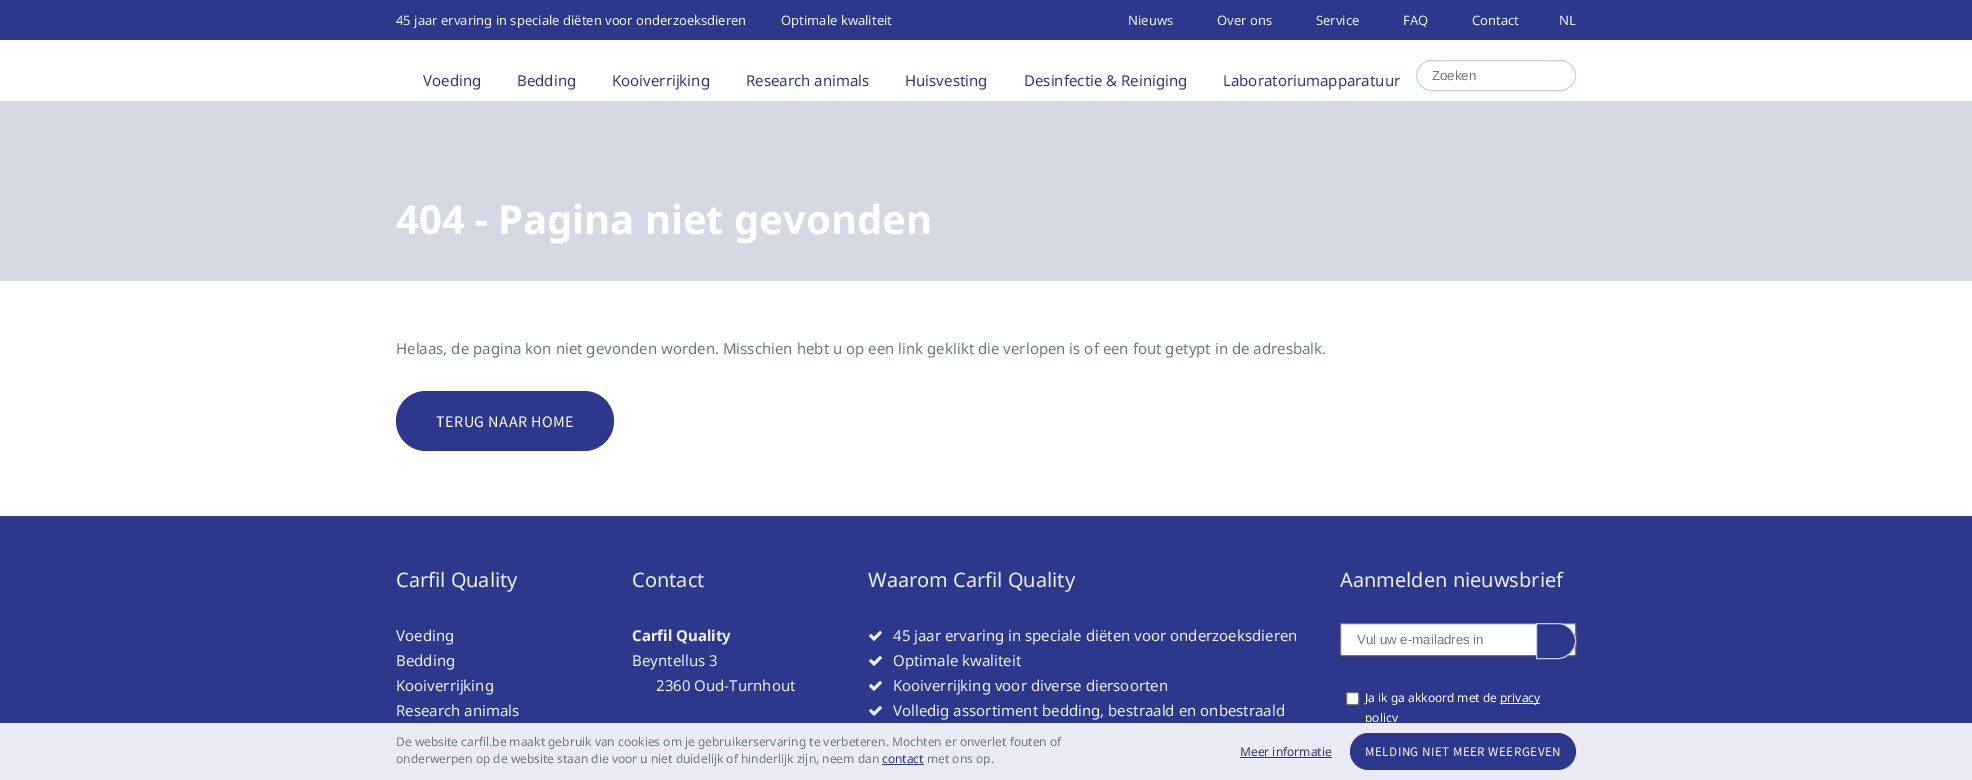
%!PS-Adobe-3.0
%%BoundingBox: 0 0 1972 780
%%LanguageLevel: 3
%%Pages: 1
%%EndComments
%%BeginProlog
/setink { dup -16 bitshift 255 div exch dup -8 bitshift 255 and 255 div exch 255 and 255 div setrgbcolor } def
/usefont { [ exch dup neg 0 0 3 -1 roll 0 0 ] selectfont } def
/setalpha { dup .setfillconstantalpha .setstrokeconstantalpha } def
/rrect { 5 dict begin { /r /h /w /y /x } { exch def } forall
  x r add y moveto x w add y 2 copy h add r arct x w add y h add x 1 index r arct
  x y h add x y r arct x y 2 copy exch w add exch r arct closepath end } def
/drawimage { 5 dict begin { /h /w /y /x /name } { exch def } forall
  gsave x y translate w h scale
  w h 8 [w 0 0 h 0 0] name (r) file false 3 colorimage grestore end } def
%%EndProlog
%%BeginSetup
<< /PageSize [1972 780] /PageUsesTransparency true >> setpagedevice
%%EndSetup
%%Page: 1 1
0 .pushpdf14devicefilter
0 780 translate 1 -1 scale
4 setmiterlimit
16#FFFFFF setink
0 0 1972 780 rectfill
16#2D378C setink
0 0 1972 40 rectfill
/NotoSans-Regular 13 usefont
16#EAF0FF setink
[
    [(45 jaar ervaring in speciale diëten voor onderzoeksdieren) 396 25]
    [(Optimale kwaliteit) 781 25]
    [(Nieuws) 1128 25]
    [(Over ons) 1217 25]
    [(Service) 1316 25]
    [(FAQ) 1403 25]
    [(Contact) 1472 25]
    [(NL) 1559 25]
] { aload pop moveto show } forall
/NotoSans-Regular 15 usefont
16#2D378C setink
[
    [(Voeding) 423 86]
    [(Bedding) 517 86]
    [(Kooiverrijking) 612 86]
    [(Research animals) 746 86]
    [(Huisvesting) 905 86]
    [(Desinfectie & Reiniging) 1024 86]
    [(Laboratoriumapparatuur) 1223 86]
] { aload pop moveto show } forall
16#C4D0E3 setink
1416.5 60.5 159 30 15 rrect stroke
/LiberationSans-Regular 13.25 usefont
16#757575 setink
1432 80 moveto (Zoeken) show
16#D5D9E4 setink
0 101 1972 180 rectfill
/NotoSans-Bold 40 usefont
16#FFFFFF setink
396 234 moveto (404 - Pagina niet gevonden) show
/NotoSans-Regular 15 usefont
16#6C797F setink
396 354 moveto (Helaas, de pagina kon niet gevonden worden. Misschien hebt u op een link geklikt die verlopen is of een fout getypt in de adresbalk.) show
16#2D378C setink
396 391 218 60 30 rrect fill
/SourceSansPro-Regular 16 usefont
16#FFFFFF setink
436 427 moveto 0.5 0 (TERUG NAAR HOME) ashow
16#2D378C setink
0 516 1972 264 rectfill
/NotoSans-Regular 20 usefont
16#EAF0FF setink
396 587 moveto (Carfil Quality) show
/NotoSans-Regular 15 usefont
[
    [(Voeding) 396 641]
    [(Bedding) 396 666]
    [(Kooiverrijking) 396 691]
    [(Research animals) 396 716]
] { aload pop moveto show } forall
/NotoSans-Regular 20 usefont
632 587 moveto (Contact) show
/NotoSans-Bold 15 usefont
632 641 moveto (Carfil Quality) show
/NotoSans-Regular 15 usefont
632 666 moveto (Beyntellus 3) show
656 691 moveto (2360 Oud-Turnhout) show
/NotoSans-Regular 20 usefont
868 587 moveto (Waarom Carfil Quality) show
(img1.raw) 869 631 13 10 drawimage
/NotoSans-Regular 15 usefont
893 641 moveto (45 jaar ervaring in speciale diëten voor onderzoeksdieren) show
(img1.raw) 869 656 13 10 drawimage
893 666 moveto (Optimale kwaliteit) show
(img1.raw) 869 681 13 10 drawimage
893 691 moveto (Kooiverrijking voor diverse diersoorten) show
(img1.raw) 869 706 13 10 drawimage
893 716 moveto (Volledig assortiment bedding, bestraald en onbestraald) show
/NotoSans-Regular 20 usefont
1340 587 moveto (Aanmelden nieuwsbrief) show
16#FFFFFF setink
1340.5 623.5 235 32 1.5 rrect gsave fill grestore
16#767676 setink
stroke
/LiberationSans-Regular 13.25 usefont
16#757575 setink
1357 644 moveto (Vul uw e-mailadres in) show
16#2D378C setink
1536.5 623.5 moveto 1558 623.5 lineto 1567.5 623.5 1575.5 631.5 1575.5 641 curveto 1575.5 650.5 1567.5 658.5 1558 658.5 curveto 1536.5 658.5 lineto closepath gsave fill grestore
16#C4D0E3 setink
stroke
16#FFFFFF setink
1346.5 692.5 12 12 1.5 rrect gsave fill grestore
16#767676 setink
stroke
/NotoSans-Regular 12 usefont
16#FFFFFF setink
1365 702 moveto (Ja ik ga akkoord met de) show
1500 703 40 1 rectfill
1500 702 moveto (privacy) show
1365 723 33 1 rectfill
1365 722 moveto (policy) show
0.9 setalpha
0 723 1972 57 rectfill
1 setalpha
16#2D378C setink
1366 722 30 1 rectfill
16#6C797F setink
396 746 moveto (De website carfil.be maakt gebruik van cookies om je gebruikerservaring te verbeteren. Mochten er onverlet fouten of) show
396 763 moveto (onderwerpen op de website staan die voor u niet duidelijk of hinderlijk zijn, neem dan) show
16#2D378C setink
882 763 moveto (contact) show
882 764 42 1 rectfill
16#6C797F setink
927 763 moveto (met ons op.) show
16#2D378C setink
1240 756 moveto (Meer informatie) show
1240 757 92 1 rectfill
1350 733 226 37 18.5 rrect fill
/SourceSansPro-Regular 13 usefont
16#FFFFFF setink
1365 756 moveto 0.5 0 (MELDING NIET MEER WEERGEVEN) ashow
.poppdf14devicefilter showpage
%%EOF
